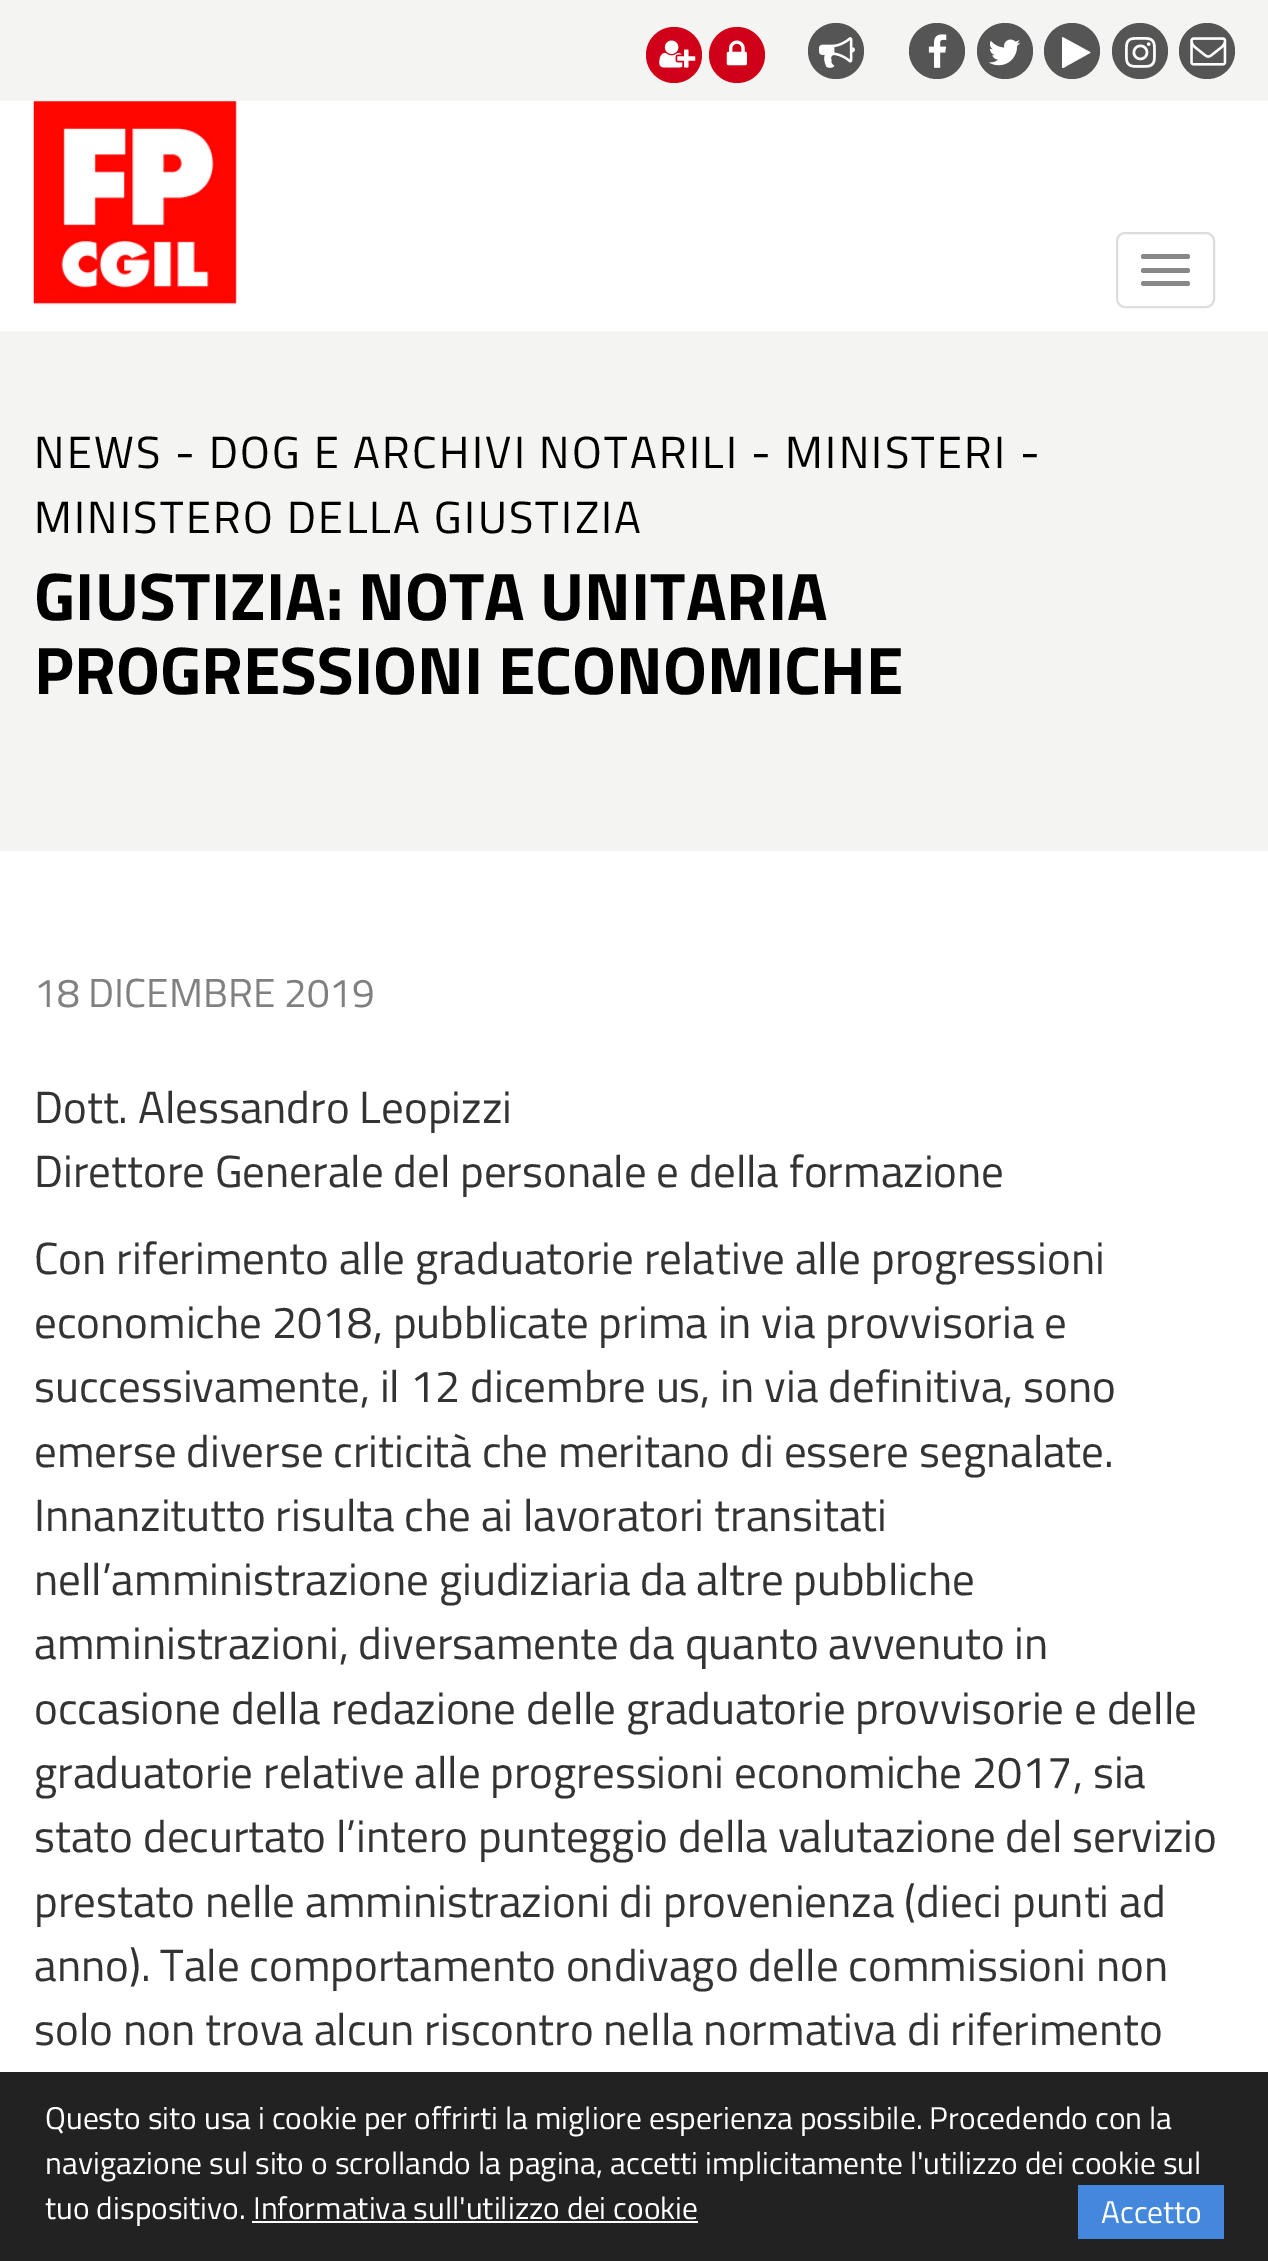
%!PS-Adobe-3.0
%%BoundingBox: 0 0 1268 2261
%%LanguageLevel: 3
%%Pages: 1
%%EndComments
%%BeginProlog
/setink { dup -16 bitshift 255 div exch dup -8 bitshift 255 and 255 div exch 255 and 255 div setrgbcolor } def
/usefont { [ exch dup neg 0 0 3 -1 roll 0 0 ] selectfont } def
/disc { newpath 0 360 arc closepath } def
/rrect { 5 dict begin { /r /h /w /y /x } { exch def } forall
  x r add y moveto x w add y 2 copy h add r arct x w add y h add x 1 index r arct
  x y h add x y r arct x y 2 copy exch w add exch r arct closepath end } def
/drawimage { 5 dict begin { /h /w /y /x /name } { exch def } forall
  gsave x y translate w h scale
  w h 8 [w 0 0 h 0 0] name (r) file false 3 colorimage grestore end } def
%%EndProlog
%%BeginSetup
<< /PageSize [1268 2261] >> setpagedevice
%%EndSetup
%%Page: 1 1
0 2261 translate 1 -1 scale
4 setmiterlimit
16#FFFFFF setink
0 0 1268 2261 rectfill
16#F4F4F2 setink
0 0 1268 101 rectfill
16#D10019 setink
674 55 28 disc fill
(img1.raw) 659 40 37 28 drawimage
737 55 28 disc fill
(img2.raw) 726 40 21 26 drawimage
16#555555 setink
836 51 28 disc fill
(img3.raw) 819 37 36 31 drawimage
937 51 28 disc fill
(img4.raw) 928 34 19 34 drawimage
1005 51 28 disc fill
(img5.raw) 988 39 33 27 drawimage
1072 51 28 disc fill
16#FFFFFF setink
1090 53 moveto 1067.5 65.5 lineto 1067 65.5 1063 69 1062 67.5 curveto 1062 37.5 lineto 1062.5 37 lineto 1090 52 lineto 1090.5 52.5 lineto closepath fill
16#555555 setink
1140 51 28 disc fill
(img6.raw) 1125 37 31 31 drawimage
1207 51 28 disc fill
(img7.raw) 1190 37 37 29 drawimage
(img8.raw) 33 101 204 204 drawimage
16#DDDDDD setink
2 setlinewidth
1117 233 97 74 8 rrect stroke
16#888888 setink
1141 254 49 5 2.5 rrect fill
1141 268 49 5 2.5 rrect fill
1141 281 49 5 2.5 rrect fill
16#F4F4F2 setink
0 331 1268 520 rectfill
/TitilliumWeb-Regular 45 usefont
16#000000 setink
34 468 moveto 2.25 0 (NEWS - DOG E ARCHIVI NOTARILI - MINISTERI -) ashow
34 533 moveto 2.25 0 (MINISTERO DELLA GIUSTIZIA) ashow
/TitilliumWeb-Bold 67.5 usefont
34 620 moveto (GIUSTIZIA: NOTA UNITARIA) show
34 694 moveto (PROGRESSIONI ECONOMICHE) show
/TitilliumWeb-Regular 40.5 usefont
16#808080 setink
34 1007 moveto (18 DICEMBRE 2019) show
/TitilliumWeb-Regular 45 usefont
16#333333 setink
[
    [(Dott. Alessandro Leopizzi) 34 1123]
    [(Direttore Generale del personale e della formazione) 34 1187]
    [(Con riferimento alle graduatorie relative alle progressioni) 34 1274]
    [(economiche 2018, pubblicate prima in via provvisoria e) 34 1338]
    [(successivamente, il 12 dicembre us, in via definitiva, sono) 34 1402]
    [(emerse diverse criticità che meritano di essere segnalate.) 34 1467]
    [(Innanzitutto risulta che ai lavoratori transitati) 34 1531]
    [(nell’amministrazione giudiziaria da altre pubbliche) 34 1595]
    [(amministrazioni, diversamente da quanto avvenuto in) 34 1659]
    [(occasione della redazione delle graduatorie provvisorie e delle) 34 1724]
    [(graduatorie relative alle progressioni economiche 2017, sia) 34 1788]
    [(stato decurtato l’intero punteggio della valutazione del servizio) 34 1852]
    [(prestato nelle amministrazioni di provenienza \(dieci punti ad) 34 1917]
    [(anno\). Tale comportamento ondivago delle commissioni non) 34 1981]
    [(solo non trova alcun riscontro nella normativa di riferimento) 34 2045]
] { aload pop moveto show } forall
16#222222 setink
0 2072 1268 189 rectfill
/TitilliumWeb-Regular 31.5 usefont
16#FFFFFF setink
[
    [(Questo sito usa i cookie per offrirti la migliore esperienza possibile. Procedendo con la) 45 2129]
    [(navigazione sul sito o scrollando la pagina, accetti implicitamente l'utilizzo dei cookie sul) 45 2174]
    [(tuo dispositivo. Informativa sull'utilizzo dei cookie) 45 2219]
] { aload pop moveto show } forall
16#4488DD setink
1078 2185 146 54 rectfill
16#FFFFFF setink
1101 2223 moveto (Accetto) show
252 2221 446 2 rectfill
showpage
%%EOF
